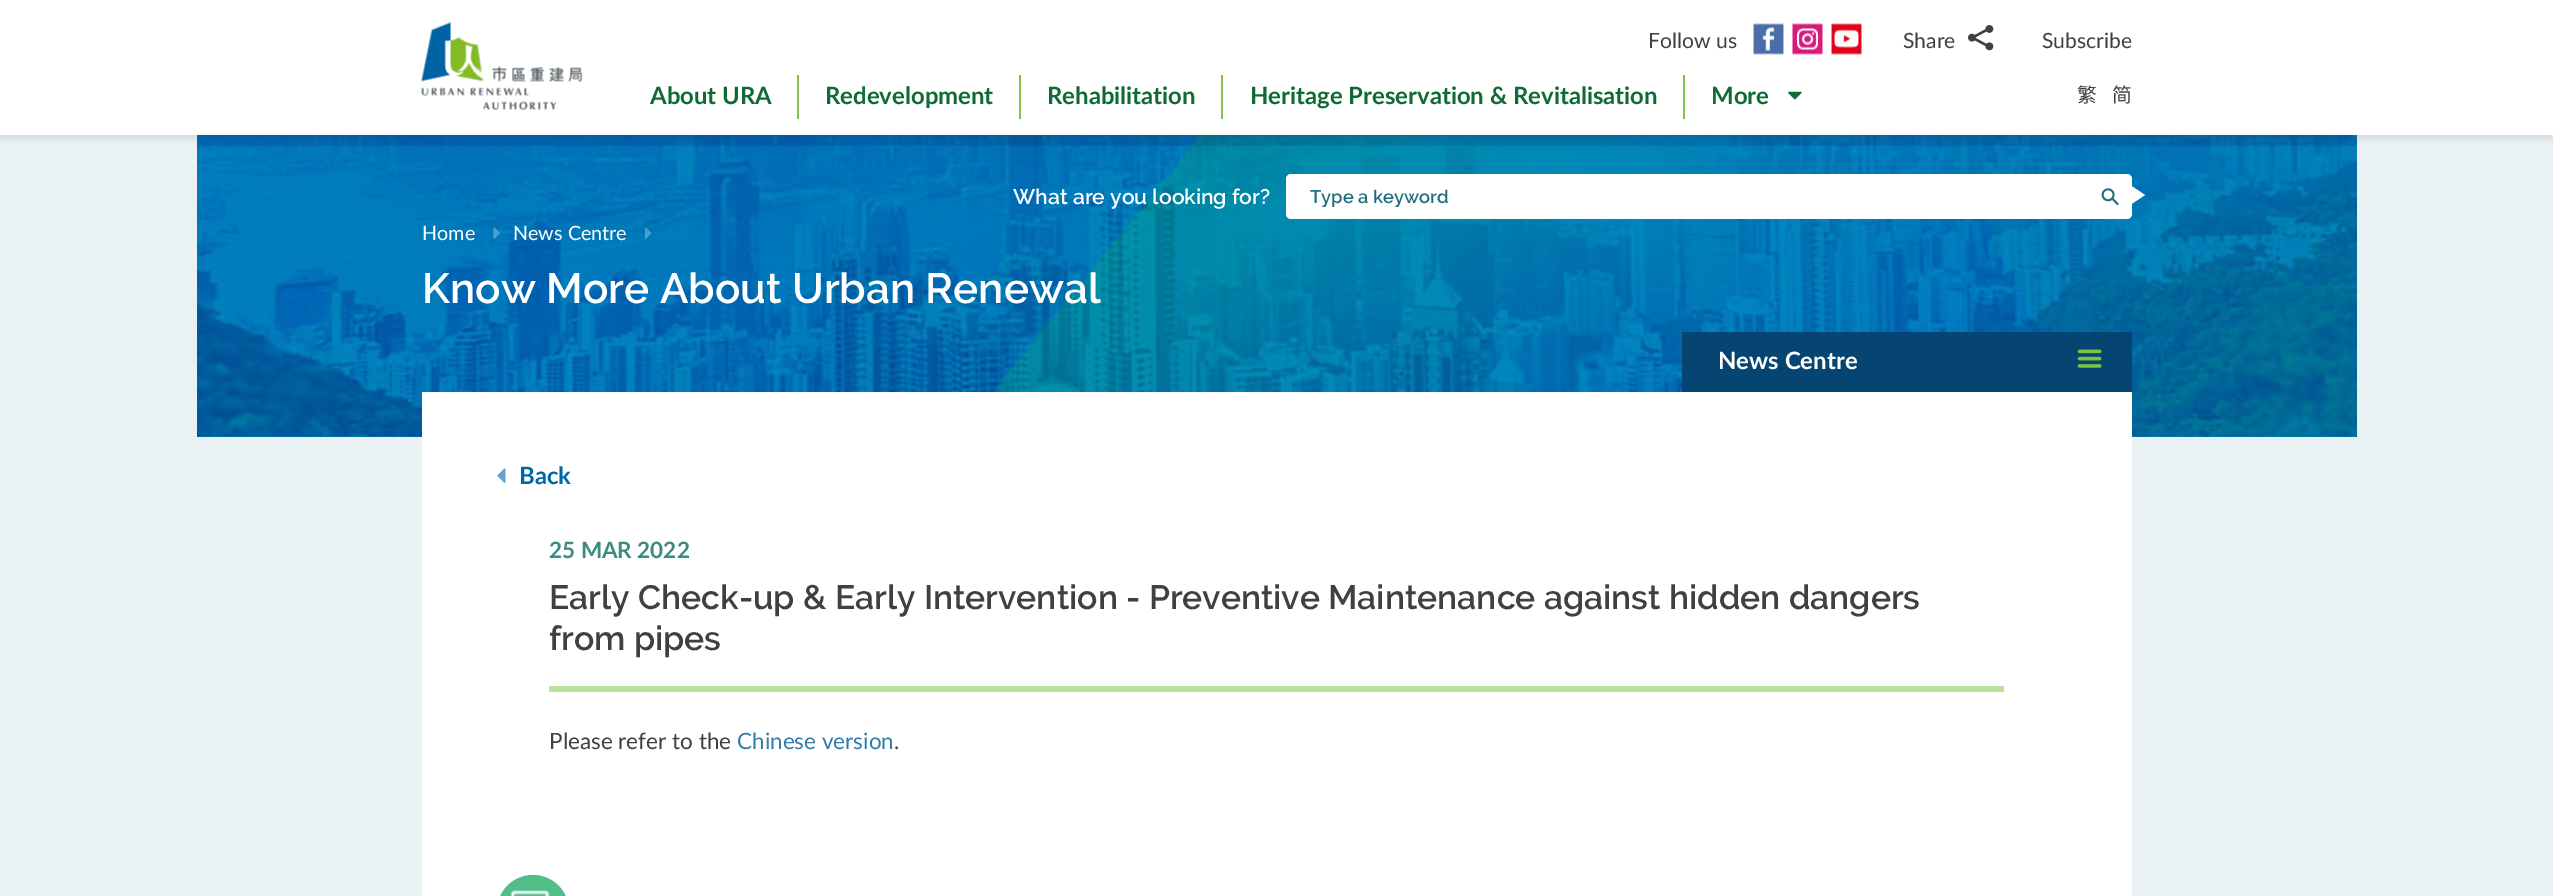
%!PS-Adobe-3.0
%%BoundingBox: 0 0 2553 896
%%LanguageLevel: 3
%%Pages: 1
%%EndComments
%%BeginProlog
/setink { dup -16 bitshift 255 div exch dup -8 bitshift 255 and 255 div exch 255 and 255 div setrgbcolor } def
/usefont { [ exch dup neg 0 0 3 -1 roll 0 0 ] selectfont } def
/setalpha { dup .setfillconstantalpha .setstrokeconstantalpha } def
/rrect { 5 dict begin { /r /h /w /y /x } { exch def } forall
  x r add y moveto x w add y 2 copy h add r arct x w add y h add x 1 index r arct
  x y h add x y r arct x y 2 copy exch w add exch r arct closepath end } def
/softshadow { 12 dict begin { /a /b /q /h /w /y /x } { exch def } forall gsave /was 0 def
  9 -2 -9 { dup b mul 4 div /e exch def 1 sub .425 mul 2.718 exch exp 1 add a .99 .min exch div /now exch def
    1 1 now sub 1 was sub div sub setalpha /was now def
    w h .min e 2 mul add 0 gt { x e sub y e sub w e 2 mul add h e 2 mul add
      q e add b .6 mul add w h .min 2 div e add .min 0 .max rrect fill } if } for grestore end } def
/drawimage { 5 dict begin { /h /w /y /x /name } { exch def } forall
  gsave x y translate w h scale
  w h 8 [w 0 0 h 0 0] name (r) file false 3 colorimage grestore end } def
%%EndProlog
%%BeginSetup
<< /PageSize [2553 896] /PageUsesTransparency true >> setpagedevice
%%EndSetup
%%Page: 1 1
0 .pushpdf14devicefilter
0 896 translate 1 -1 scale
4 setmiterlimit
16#EAF1F5 setink
0 0 2553 896 rectfill
16#007CBC setink
197 436 2160 1 rectfill
(img7.raw) 197 135 2160 302 drawimage
16#323232 setink
0 3 2553 135 0 4 0.15 softshadow
16#FFFFFF setink
0 0 2553 135 rectfill
(img1.raw) 421 22 162 88 drawimage
/Lato-Regular 21.1 usefont
16#404040 setink
1648 48 moveto (Follow us) show
(img2.raw) 1753 23 31 32 drawimage
(img3.raw) 1792 23 31 32 drawimage
(img4.raw) 1831 23 31 32 drawimage
1903 48 moveto (Share) show
(img5.raw) 1968 25 26 26 drawimage
2042 48 moveto (Subscribe) show
/Lato-Bold 23.9 usefont
16#0F6B34 setink
650 104 moveto (About URA) show
16#82C449 setink
797 75 2 44 rectfill
16#0F6B34 setink
825 104 moveto (Redevelopment) show
16#82C449 setink
1019 75 2 44 rectfill
16#0F6B34 setink
1047 104 moveto (Rehabilitation) show
16#82C449 setink
1221 75 2 44 rectfill
16#0F6B34 setink
1250 104 moveto (Heritage Preservation & Revitalisation) show
16#82C449 setink
1683 75 2 44 rectfill
16#0F6B34 setink
1711 104 moveto (More) show
(img6.raw) 1788 91 14 9 drawimage
/NotoSansCJKHK-Regular 19.75 usefont
16#404040 setink
2077 102 moveto (繁) show
/NotoSansCJKSC-Regular 19.75 usefont
2112 102 moveto (简) show
/Raleway-SemiBold 21.1 usefont
16#FFFFFF setink
1013 204 moveto (What are you looking for?) show
2131.5 204 moveto 2131.5 186 lineto 2145 195 lineto closepath fill
1286 174 846 45 5 rrect fill
gsave
1310 186 780 21 rectclip
/Raleway-SemiBold 18.25 usefont
16#216E81 setink
1310 203 moveto (Type a keyword) show
grestore
(img8.raw) 2101 188 18 17 drawimage
/Lato-Regular 19.75 usefont
422 240 moveto (Home) show
(img9.raw) 493 227 7 12 drawimage
513 240 moveto (News Centre) show
(img10.raw) 645 227 7 12 drawimage
/Raleway-SemiBold 42.25 usefont
422 303 moveto (Know More About Urban Renewal) show
422 392 1710 504 rectfill
16#064472 setink
1682 332 450 60 rectfill
/Lato-Bold 23.9 usefont
16#FFFFFF setink
1718 369 moveto (News Centre) show
(img11.raw) 2077 349 25 19 drawimage
(img12.raw) 497 468 9 15 drawimage
16#0067A6 setink
519 484 moveto (Back) show
/Lato-Bold 22.5 usefont
16#3A8C82 setink
549 558 moveto (25 MAR 2022) show
16#BCE09E setink
549 686 1455 6 rectfill
/Raleway-SemiBold 33.75 usefont
16#404040 setink
549 609 moveto (Early Check-up & Early Intervention - Preventive Maintenance against hidden dangers) show
549 650 moveto (from pipes) show
/Lato-Regular 22.5 usefont
549 749 moveto (Please refer to the) show
16#337BA8 setink
737 749 moveto (Chinese version) show
16#404040 setink
894 749 moveto (.) show
16#51BD89 setink
497 875 72 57 36 rrect fill
(img13.raw) 511 890 39 6 drawimage
.poppdf14devicefilter showpage
%%EOF
